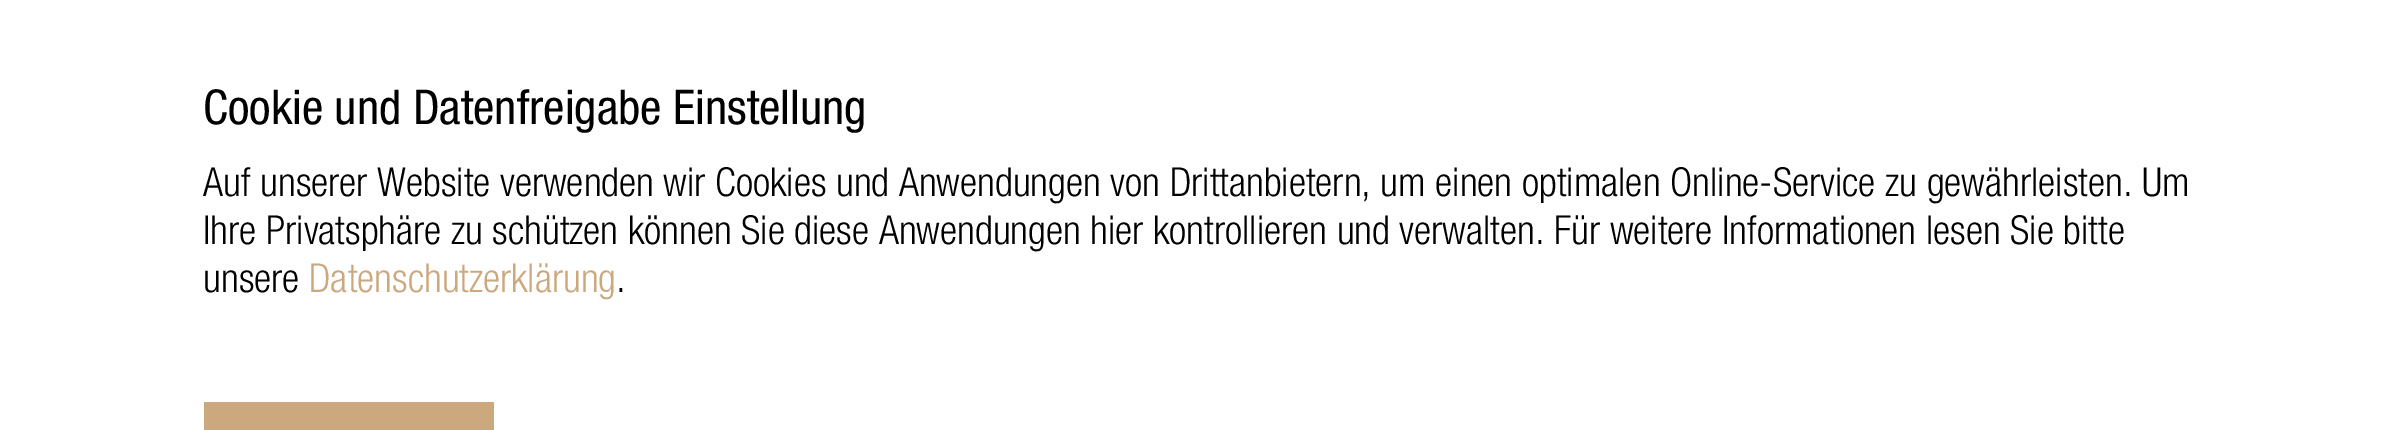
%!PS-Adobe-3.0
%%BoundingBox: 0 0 2405 430
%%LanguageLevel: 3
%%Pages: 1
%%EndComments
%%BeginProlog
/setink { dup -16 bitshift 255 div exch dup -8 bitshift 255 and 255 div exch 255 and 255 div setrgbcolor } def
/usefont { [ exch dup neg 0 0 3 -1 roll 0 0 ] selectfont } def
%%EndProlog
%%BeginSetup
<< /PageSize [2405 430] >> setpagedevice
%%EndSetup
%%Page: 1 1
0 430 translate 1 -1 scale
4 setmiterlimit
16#FFFFFF setink
0 0 2405 430 rectfill
/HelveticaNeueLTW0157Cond-Regular 48 usefont
16#000000 setink
203 124 moveto (Cookie und Datenfreigabe Einstellung) show
/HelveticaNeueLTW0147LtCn-Light 40 usefont
[
    [(Auf unserer Website verwenden wir Cookies und Anwendungen von Drittanbietern, um einen optimalen Online-Service zu gewährleisten. Um) 203 196]
    [(Ihre Privatsphäre zu schützen können Sie diese Anwendungen hier kontrollieren und verwalten. Für weitere Informationen lesen Sie bitte) 203 244]
    [(unsere) 203 292]
] { aload pop moveto show } forall
16#CBA87E setink
309 292 moveto (Datenschutzerklärung) show
16#000000 setink
616 292 moveto (.) show
16#CBA87E setink
204 402 290 28 rectfill
showpage
%%EOF
